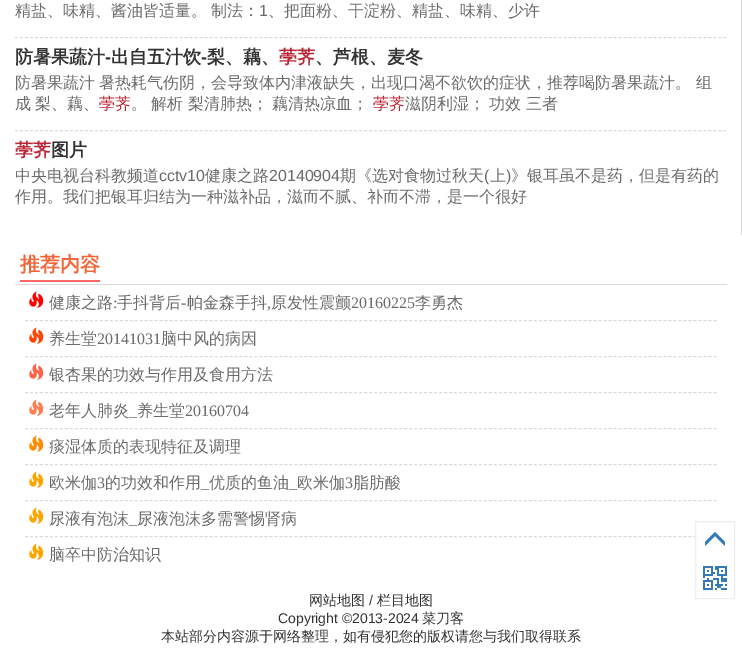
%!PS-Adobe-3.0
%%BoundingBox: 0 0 742 666
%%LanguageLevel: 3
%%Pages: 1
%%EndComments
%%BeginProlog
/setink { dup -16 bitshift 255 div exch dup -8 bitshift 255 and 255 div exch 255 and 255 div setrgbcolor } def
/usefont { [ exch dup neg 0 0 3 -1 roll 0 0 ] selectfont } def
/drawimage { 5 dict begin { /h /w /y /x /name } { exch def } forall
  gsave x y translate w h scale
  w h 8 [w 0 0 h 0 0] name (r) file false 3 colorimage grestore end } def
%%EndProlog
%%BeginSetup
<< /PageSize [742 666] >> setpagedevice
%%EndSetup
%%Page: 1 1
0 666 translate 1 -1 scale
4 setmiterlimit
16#FFFFFF setink
0 0 742 666 rectfill
16#DCDCDC setink
741 0 1 235 rectfill
/WenQuanYiZenHei-Medium 16 usefont
16#6B6B6B setink
15 16 moveto -0.5 0 32 (精盐、味精、酱油皆适量。 制法：) widthshow
/LiberationSans-Regular 16 usefont
259 16 moveto (1) show
/WenQuanYiZenHei-Medium 16 usefont
268 16 moveto (、把面粉、干淀粉、精盐、味精、少许) show
16#DCDCDC setink
[3 1.99] 0 setdash
15 37.5 moveto 726 37.5 lineto stroke
/WenQuanYiZenHei-Bold 18 usefont
16#333333 setink
15 63 moveto (防暑果蔬汁) show
/LiberationSans-Bold 18 usefont
105 63 moveto (-) show
/WenQuanYiZenHei-Bold 18 usefont
111 63 moveto (出自五汁饮) show
/LiberationSans-Bold 18 usefont
201 63 moveto (-) show
/WenQuanYiZenHei-Bold 18 usefont
207 63 moveto (梨、藕、) show
16#BA2636 setink
279 63 moveto (荸荠) show
16#333333 setink
315 63 moveto (、芦根、麦冬) show
/WenQuanYiZenHei-Medium 16 usefont
16#6B6B6B setink
15 88 moveto -0.5 0 32 (防暑果蔬汁 暑热耗气伤阴，会导致体内津液缺失，出现口渴不欲饮的症状，推荐喝防暑果蔬汁。 组) widthshow
15 109 moveto -0.5 0 32 (成 梨、藕、) widthshow
16#BA2636 setink
99 109 moveto (荸荠) show
16#6B6B6B setink
131 109 moveto -0.5 0 32 (。 解析 梨清肺热； 藕清热凉血；) widthshow
16#BA2636 setink
373 109 moveto (荸荠) show
16#6B6B6B setink
405 109 moveto -0.5 0 32 (滋阴利湿； 功效 三者) widthshow
16#DCDCDC setink
15 130.5 moveto 726 130.5 lineto stroke
/WenQuanYiZenHei-Bold 18 usefont
16#BA2636 setink
15 156 moveto (荸荠) show
16#333333 setink
51 156 moveto (图片) show
/WenQuanYiZenHei-Medium 16 usefont
16#6B6B6B setink
15 181 moveto (中央电视台科教频道) show
/LiberationSans-Regular 16 usefont
159 181 moveto (cctv10) show
/WenQuanYiZenHei-Medium 16 usefont
205 181 moveto (健康之路) show
/LiberationSans-Regular 16 usefont
269 181 moveto (20140904) show
/WenQuanYiZenHei-Medium 16 usefont
340 181 moveto (期《选对食物过秋天) show
/LiberationSans-Regular 16 usefont
484 181 moveto (\() show
/WenQuanYiZenHei-Medium 16 usefont
490 181 moveto (上) show
/LiberationSans-Regular 16 usefont
506 181 moveto (\)) show
/WenQuanYiZenHei-Medium 16 usefont
511 181 moveto (》银耳虽不是药，但是有药的) show
15 202 moveto (作用。我们把银耳归结为一种滋补品，滋而不腻、补而不滞，是一个很好) show
16#DCDCDC setink
15 284 712 1 rectfill
/WenQuanYiZenHei-Bold 20 usefont
16#F36639 setink
20 271 moveto (推荐内容) show
16#FF6666 setink
20 280 80 2 rectfill
16#DCDCDC setink
25 320.5 moveto 717 320.5 lineto stroke
(img1.raw) 29 291 15 17 drawimage
/WenQuanYiZenHei-Medium 16 usefont
16#6B6B6B setink
49 308 moveto (健康之路) show
/LiberationSerif-Regular 16 usefont
113 308 moveto (:) show
/WenQuanYiZenHei-Medium 16 usefont
117 308 moveto (手抖背后) show
/LiberationSerif-Regular 16 usefont
181 308 moveto (-) show
/WenQuanYiZenHei-Medium 16 usefont
187 308 moveto (帕金森手抖) show
271 308 moveto (原发性震颤) show
/LiberationSerif-Regular 16 usefont
351 308 moveto (20160225) show
/WenQuanYiZenHei-Medium 16 usefont
415 308 moveto (李勇杰) show
/LiberationSerif-Regular 16 usefont
267 308 moveto (,) show
16#DCDCDC setink
25 356.5 moveto 717 356.5 lineto stroke
(img2.raw) 29 327 15 17 drawimage
/WenQuanYiZenHei-Medium 16 usefont
16#6B6B6B setink
49 344 moveto (养生堂) show
/LiberationSerif-Regular 16 usefont
97 344 moveto (20141031) show
/WenQuanYiZenHei-Medium 16 usefont
161 344 moveto (脑中风的病因) show
16#DCDCDC setink
25 392.5 moveto 717 392.5 lineto stroke
(img3.raw) 29 363 15 17 drawimage
16#6B6B6B setink
49 380 moveto (银杏果的功效与作用及食用方法) show
16#DCDCDC setink
25 428.5 moveto 717 428.5 lineto stroke
(img4.raw) 29 399 15 17 drawimage
16#6B6B6B setink
49 416 moveto (老年人肺炎) show
/LiberationSerif-Regular 16 usefont
129 416 moveto (_) show
/WenQuanYiZenHei-Medium 16 usefont
137 416 moveto (养生堂) show
/LiberationSerif-Regular 16 usefont
185 416 moveto (20160704) show
16#DCDCDC setink
25 464.5 moveto 717 464.5 lineto stroke
(img5.raw) 29 435 15 17 drawimage
/WenQuanYiZenHei-Medium 16 usefont
16#6B6B6B setink
49 452 moveto (痰湿体质的表现特征及调理) show
16#DCDCDC setink
25 500.5 moveto 717 500.5 lineto stroke
(img6.raw) 29 471 15 17 drawimage
16#6B6B6B setink
49 488 moveto (欧米伽) show
/LiberationSerif-Regular 16 usefont
97 488 moveto (3) show
/WenQuanYiZenHei-Medium 16 usefont
105 488 moveto (的功效和作用) show
/LiberationSerif-Regular 16 usefont
201 488 moveto (_) show
/WenQuanYiZenHei-Medium 16 usefont
209 488 moveto (优质的鱼油) show
/LiberationSerif-Regular 16 usefont
289 488 moveto (_) show
/WenQuanYiZenHei-Medium 16 usefont
297 488 moveto (欧米伽) show
/LiberationSerif-Regular 16 usefont
345 488 moveto (3) show
/WenQuanYiZenHei-Medium 16 usefont
353 488 moveto (脂肪酸) show
16#DCDCDC setink
25 536.5 moveto 717 536.5 lineto stroke
(img6.raw) 29 507 15 17 drawimage
16#6B6B6B setink
49 524 moveto (尿液有泡沫) show
/LiberationSerif-Regular 16 usefont
129 524 moveto (_) show
/WenQuanYiZenHei-Medium 16 usefont
137 524 moveto (尿液泡沫多需警惕肾病) show
(img6.raw) 29 543 15 17 drawimage
49 560 moveto (脑卒中防治知识) show
16#FFFFFF setink
696 536 21 1 rectfill
16#EEEEEE setink
[] 0 setdash
695.5 521.5 39 77 rectstroke
(img7.raw) 705 532 20 14 drawimage
(img8.raw) 703 566 24 24 drawimage
/WenQuanYiZenHei-Medium 14 usefont
16#333333 setink
309 605 moveto (网站地图) show
/LiberationSans-Regular 14 usefont
369 605 moveto (/) show
/WenQuanYiZenHei-Medium 14 usefont
377 605 moveto (栏目地图) show
/LiberationSans-Regular 14 usefont
278 623 moveto (Copyright ©2013-2024) show
/WenQuanYiZenHei-Medium 14 usefont
422 623 moveto (菜刀客) show
161 641 moveto (本站部分内容源于网络整理，如有侵犯您的版权请您与我们取得联系) show
showpage
%%EOF
